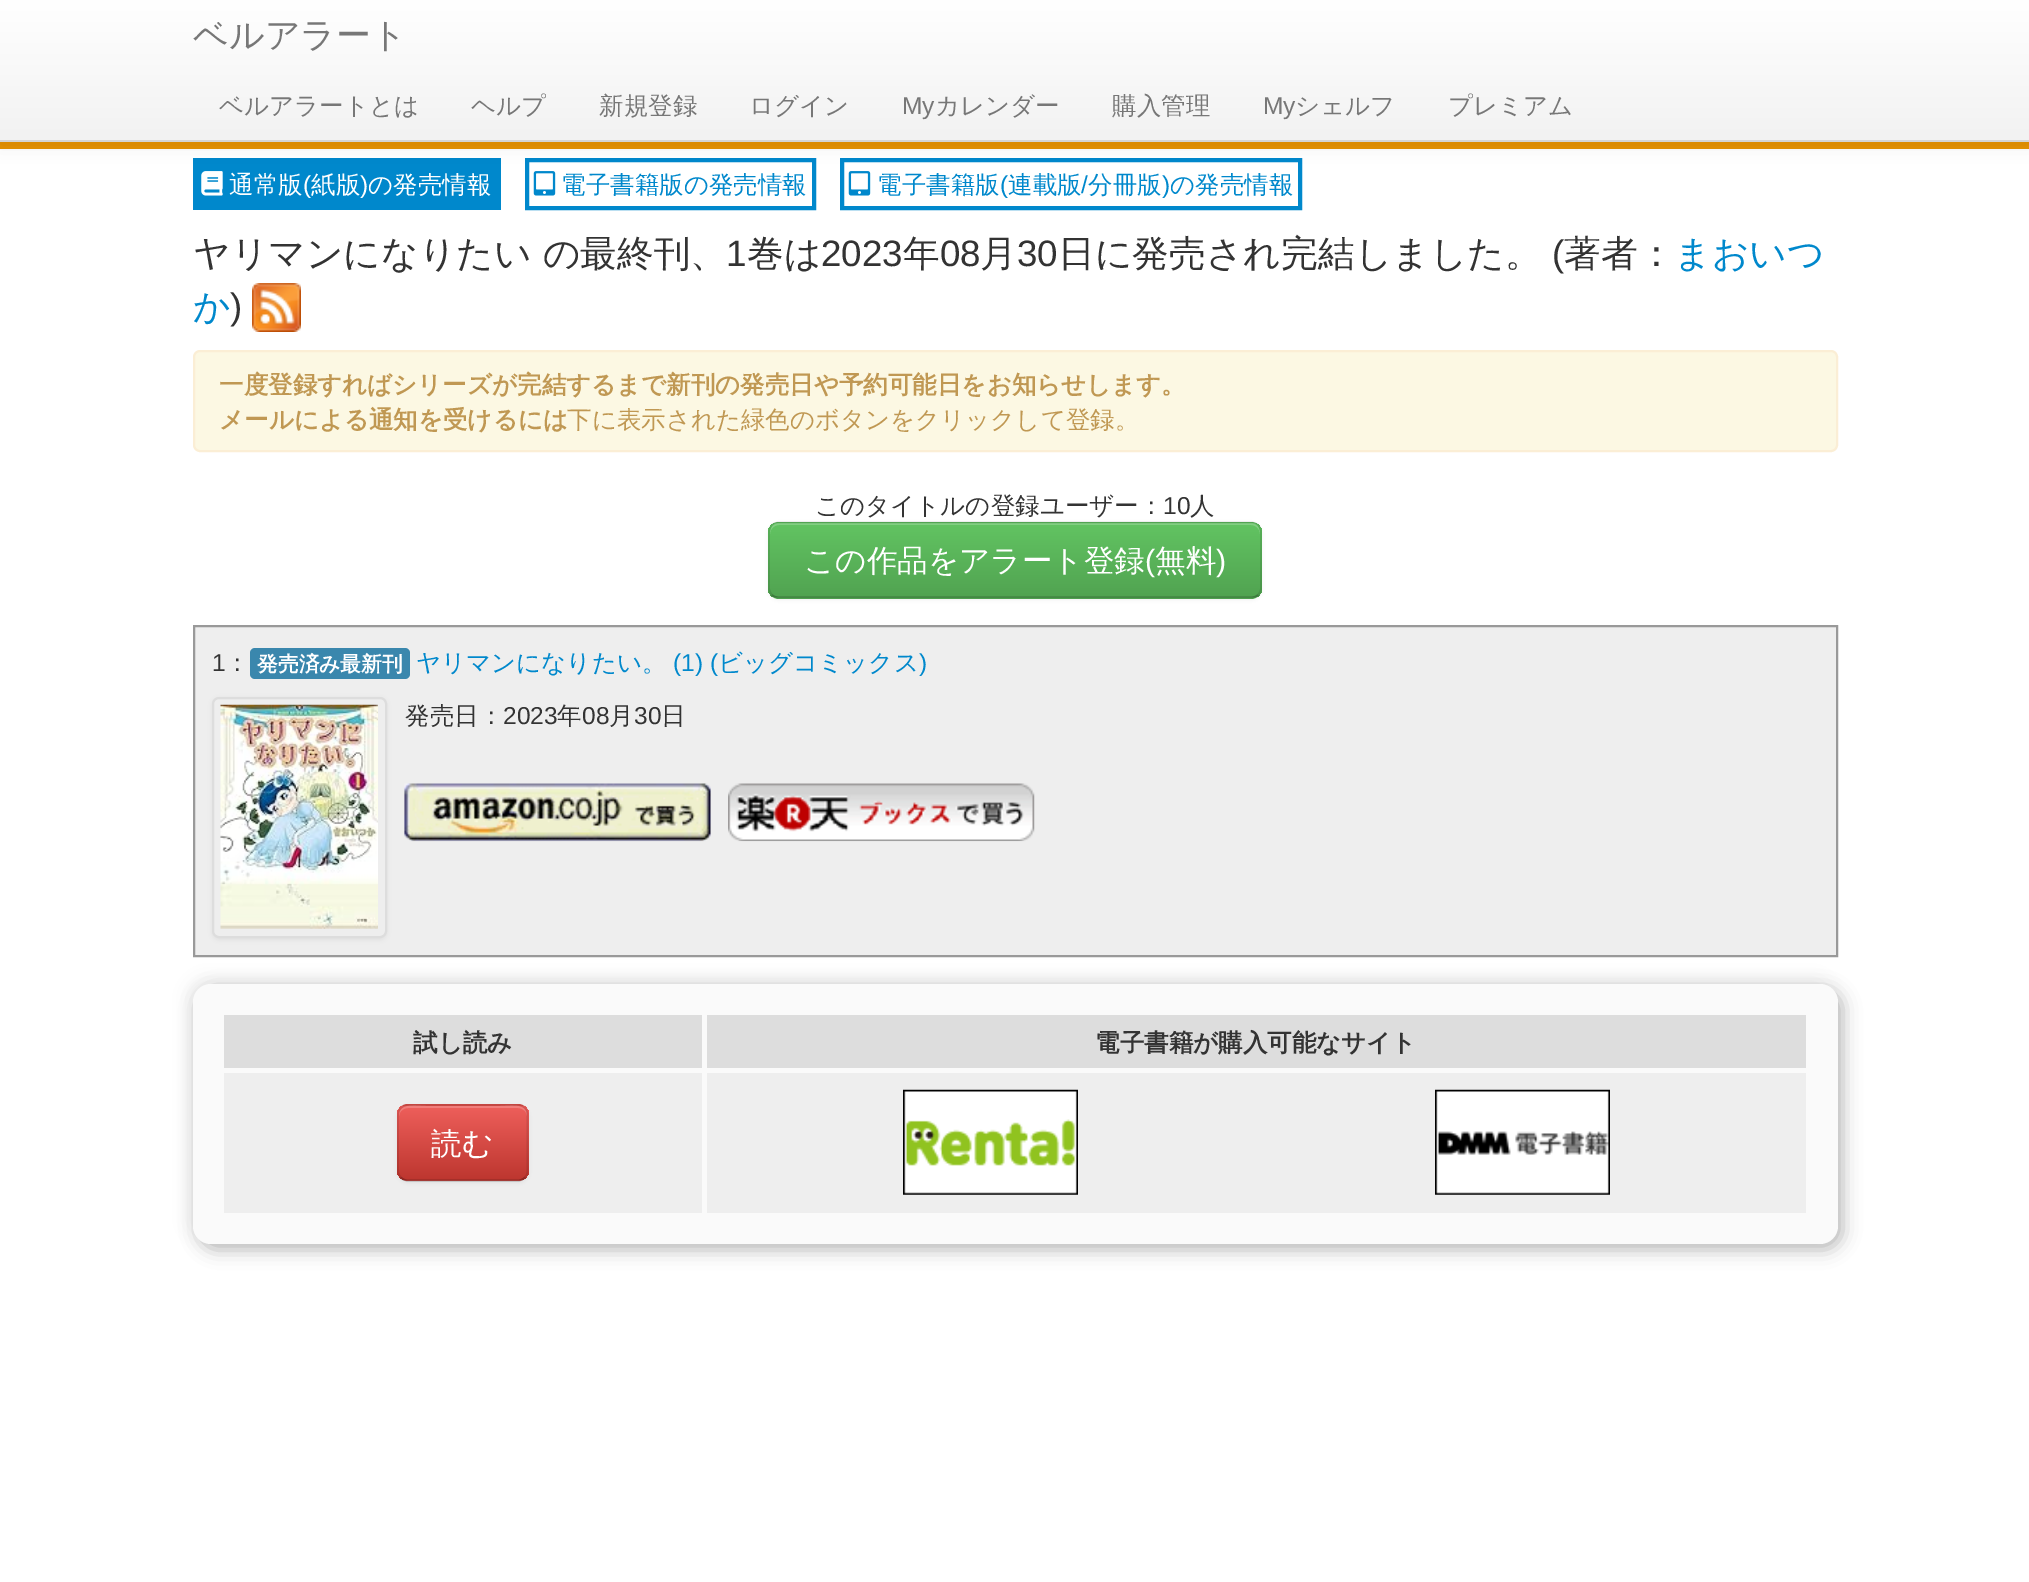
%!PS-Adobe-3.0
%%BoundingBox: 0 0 2029 1582
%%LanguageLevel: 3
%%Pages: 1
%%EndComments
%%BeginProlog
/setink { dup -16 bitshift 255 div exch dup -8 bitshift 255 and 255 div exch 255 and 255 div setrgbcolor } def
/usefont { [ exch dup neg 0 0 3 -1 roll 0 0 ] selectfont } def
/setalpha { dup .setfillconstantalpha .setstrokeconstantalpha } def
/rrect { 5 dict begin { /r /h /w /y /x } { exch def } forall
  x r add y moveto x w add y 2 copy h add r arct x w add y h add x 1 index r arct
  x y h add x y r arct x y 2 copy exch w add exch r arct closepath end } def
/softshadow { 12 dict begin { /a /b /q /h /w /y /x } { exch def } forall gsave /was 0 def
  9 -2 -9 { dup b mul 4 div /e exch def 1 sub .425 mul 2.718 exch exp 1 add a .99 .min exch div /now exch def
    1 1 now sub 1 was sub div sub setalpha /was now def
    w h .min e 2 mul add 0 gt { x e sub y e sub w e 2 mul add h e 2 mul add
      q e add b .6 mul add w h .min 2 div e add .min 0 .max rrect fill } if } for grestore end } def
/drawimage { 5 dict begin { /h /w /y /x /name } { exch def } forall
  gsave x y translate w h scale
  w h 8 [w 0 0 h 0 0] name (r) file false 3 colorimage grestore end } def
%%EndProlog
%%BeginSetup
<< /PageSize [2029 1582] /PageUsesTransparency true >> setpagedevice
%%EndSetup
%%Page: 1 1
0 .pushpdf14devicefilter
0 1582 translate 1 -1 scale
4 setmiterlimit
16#FFFFFF setink
0 0 2029 1582 rectfill
16#E79302 setink
0 142 2029 7 rectfill
16#0088CC setink
193 158 308 52 rectfill
(img1.raw) 201 171 22 25 drawimage
4 setlinewidth
527 160 287 48 rectstroke
(img2.raw) 533 171 23 25 drawimage
842 160 458 48 rectstroke
(img2.raw) 848 171 23 25 drawimage
16#000000 setink
0 2 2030 142 0 9 0.1 softshadow
gsave 0 0 moveto 2029 0 lineto 2029 140 lineto 0 140 lineto closepath clip newpath
<< /ShadingType 2 /ColorSpace /DeviceRGB /Coords [1015 0 1015 140] /Extend [true true] /Function << /FunctionType 2 /Domain [0 1] /C0 [1 1 1] /C1 [0.949 0.949 0.949] /N 1 >> >> shfill grestore
16#D4D4D4 setink
0 140 2029 2 rectfill
/WenQuanYiZenHei-Medium 35 usefont
16#777777 setink
193 47 moveto (ベルアラート) show
/WenQuanYiZenHei-Medium 24.5 usefont
[
    [(ベルアラートとは) 219 114]
    [(ヘルプ) 471 114]
    [(新規登録) 599 114]
    [(ログイン) 749 114]
] { aload pop moveto show } forall
/LiberationSans-Regular 24.5 usefont
902 114 moveto (My) show
/WenQuanYiZenHei-Medium 24.5 usefont
935 114 moveto (カレンダー) show
1112 114 moveto (購入管理) show
/LiberationSans-Regular 24.5 usefont
1263 114 moveto (My) show
/WenQuanYiZenHei-Medium 24.5 usefont
1295 114 moveto (シェルフ) show
1448 114 moveto (プレミアム) show
16#FFFFFF setink
229 193 moveto (通常版) show
/LiberationSans-Regular 24.5 usefont
303 193 moveto (\() show
/WenQuanYiZenHei-Medium 24.5 usefont
311 193 moveto (紙版) show
/LiberationSans-Regular 24.5 usefont
360 193 moveto (\)) show
/WenQuanYiZenHei-Medium 24.5 usefont
368 193 moveto (の発売情報) show
16#0088CC setink
561 193 moveto (電子書籍版の発売情報) show
877 193 moveto (電子書籍版) show
/LiberationSans-Regular 24.5 usefont
1000 193 moveto (\() show
/WenQuanYiZenHei-Medium 24.5 usefont
1008 193 moveto (連載版) show
/LiberationSans-Regular 24.5 usefont
1081 193 moveto (/) show
/WenQuanYiZenHei-Medium 24.5 usefont
1088 193 moveto (分冊版) show
/LiberationSans-Regular 24.5 usefont
1162 193 moveto (\)) show
/WenQuanYiZenHei-Medium 24.5 usefont
1170 193 moveto (の発売情報) show
/WenQuanYiZenHei-Medium 36.75 usefont
16#333333 setink
193 266 moveto (ヤリマンになりたい の最終刊、) show
/LiberationSans-Regular 36.75 usefont
726 266 moveto (1) show
/WenQuanYiZenHei-Medium 36.75 usefont
747 266 moveto (巻は) show
/LiberationSans-Regular 36.75 usefont
821 266 moveto (2023) show
/WenQuanYiZenHei-Medium 36.75 usefont
903 266 moveto (年) show
/LiberationSans-Regular 36.75 usefont
940 266 moveto (08) show
/WenQuanYiZenHei-Medium 36.75 usefont
980 266 moveto (月) show
/LiberationSans-Regular 36.75 usefont
1017 266 moveto (30) show
/WenQuanYiZenHei-Medium 36.75 usefont
1058 266 moveto (日に発売され完結しました。) show
/LiberationSans-Regular 36.75 usefont
1552 266 moveto (\() show
/WenQuanYiZenHei-Medium 36.75 usefont
1564 266 moveto (著者：) show
16#0088CC setink
1674 266 moveto (まおいつ) show
193 319 moveto (か) show
/LiberationSans-Regular 36.75 usefont
16#333333 setink
230 319 moveto (\)) show
(img3.raw) 252 283 49 49 drawimage
16#FCF8E3 setink
194 351 1643 100 6 rrect gsave fill grestore
16#FBEED5 setink
2 setlinewidth
stroke
/WenQuanYiZenHei-Bold 24.5 usefont
16#C09853 setink
219 393 moveto (一度登録すればシリーズが完結するまで新刊の発売日や予約可能日をお知らせします。) show
219 428 moveto (メールによる通知を受けるには) show
/WenQuanYiZenHei-Medium 24.5 usefont
567 428 moveto (下に表示された緑色のボタンをクリックして登録。) show
16#333333 setink
815 514 moveto (このタイトルの登録ユーザー：) show
/LiberationSans-Regular 24.5 usefont
1163 514 moveto (10) show
/WenQuanYiZenHei-Medium 24.5 usefont
1190 514 moveto (人) show
16#000000 setink
768 523 494 77 11 2 0.05 softshadow
16#5BB75B setink
768 522 494 77 11 rrect fill
gsave
768 522 494 77 11 rrect clip newpath
gsave 768 523 moveto 1262 523 lineto 1262 597 lineto 768 597 lineto closepath clip newpath
<< /ShadingType 2 /ColorSpace /DeviceRGB /Coords [1015 523 1015 597] /Extend [true true] /Function << /FunctionType 2 /Domain [0 1] /C0 [0.384 0.769 0.384] /C1 [0.318 0.639 0.318] /N 1 >> >> shfill grestore
grestore
16#81CF81 setink
779 525 moveto 1251 525 lineto 1256 525 1260 529 1260 534 curveto 1260 528 1257 523 1251 523 curveto 779 523 lineto 773 523 770 528 770 534 curveto 770 529 774 525 779 525 curveto closepath fill
0.25 setalpha
16#000000 setink
1.8 setlinewidth
1258 595 moveto 1256.5 596.5 1254 597.5 1251 597.5 curveto 779 597.5 lineto 776 597.5 773.5 596.5 772 595 curveto stroke
0.1 setalpha
772 595 moveto 770 593 769 590.5 769 588 curveto 769 532 lineto 769 529.5 770 527 772 525 curveto 773.5 523.5 776 522.5 779 522.5 curveto 1251 522.5 lineto 1254 522.5 1256.5 523.5 1258 525 curveto 1260 527 1261 529.5 1261 532 curveto 1261 588 lineto 1261 590.5 1260 593 1258 595 curveto stroke
/WenQuanYiZenHei-Medium 30.6 usefont
1 setalpha
16#FFFFFF setink
804 571 moveto (この作品をアラート登録) show
/LiberationSans-Regular 30.6 usefont
1145 571 moveto (\() show
/WenQuanYiZenHei-Medium 30.6 usefont
1155 571 moveto (無料) show
/LiberationSans-Regular 30.6 usefont
1216 571 moveto (\)) show
16#F0F0F0 setink
187 978 1645 261 18 9 0.9 softshadow
16#EEEEEE setink
194 626 moveto 1837 626 lineto 1837 956 lineto 194 956 lineto closepath gsave fill grestore
16#999999 setink
2 setlinewidth
stroke
/LiberationSans-Regular 24.5 usefont
16#333333 setink
212 671 moveto (1) show
/WenQuanYiZenHei-Medium 24.5 usefont
225 671 moveto (：) show
16#3A87AD setink
250 648 160 31 5 rrect fill
/WenQuanYiZenHei-Bold 20.75 usefont
16#FFFFFF setink
257 671 moveto (発売済み最新刊) show
/WenQuanYiZenHei-Medium 24.5 usefont
16#0088CC setink
416 671 moveto (ヤリマンになりたい。) show
/LiberationSans-Regular 24.5 usefont
673 671 moveto (\(1\) \() show
/WenQuanYiZenHei-Medium 24.5 usefont
718 671 moveto (ビッグコミックス) show
/LiberationSans-Regular 24.5 usefont
919 671 moveto (\)) show
gsave
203 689 moveto 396 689 lineto 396 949 lineto 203 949 lineto closepath 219 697 moveto 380 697 lineto 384 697 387 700 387 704 curveto 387 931 lineto 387 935 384 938 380 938 curveto 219 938 lineto 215 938 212 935 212 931 curveto 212 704 lineto 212 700 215 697 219 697 curveto closepath eoclip newpath
16#000000 setink
212 698 175 242 7 2.5 0.06 softshadow
grestore
16#DDDDDD setink
213 698 173 239 6 rrect stroke
(img4.raw) 220 704 158 225 drawimage
/WenQuanYiZenHei-Medium 24.5 usefont
16#333333 setink
405 724 moveto (発売日：) show
/LiberationSans-Regular 24.5 usefont
503 724 moveto (2023) show
/WenQuanYiZenHei-Medium 24.5 usefont
557 724 moveto (年) show
/LiberationSans-Regular 24.5 usefont
582 724 moveto (08) show
/WenQuanYiZenHei-Medium 24.5 usefont
609 724 moveto (月) show
/LiberationSans-Regular 24.5 usefont
634 724 moveto (30) show
/WenQuanYiZenHei-Medium 24.5 usefont
661 724 moveto (日) show
(img5.raw) 404 783 307 59 drawimage
(img6.raw) 728 783 307 59 drawimage
16#1C1C1C setink
198 989 1645 261 18 9 0.3 softshadow
16#FAFAFA setink
193 984 1645 260 18 rrect fill
16#DDDDDD setink
224 1015 478 53 rectfill
/WenQuanYiZenHei-Bold 24.5 usefont
16#333333 setink
413 1051 moveto (試し読み) show
16#DDDDDD setink
707 1015 1099 53 rectfill
16#333333 setink
1095 1051 moveto (電子書籍が購入可能なサイト) show
16#EEEEEE setink
224 1073 478 140 rectfill
16#000000 setink
397 1106 132 77 11 2 0.05 softshadow
16#DA4F49 setink
397 1104 132 77 11 rrect fill
gsave
397 1104 132 77 11 rrect clip newpath
gsave 397 1106 moveto 529 1106 lineto 529 1180 lineto 397 1180 lineto closepath clip newpath
<< /ShadingType 2 /ColorSpace /DeviceRGB /Coords [463 1106 463 1180] /Extend [true true] /Function << /FunctionType 2 /Domain [0 1] /C0 [0.933 0.373 0.357] /C1 [0.741 0.212 0.184] /N 1 >> >> shfill grestore
grestore
0.2 setalpha
16#FFFFFF setink
408 1108 moveto 518 1108 lineto 523 1108 527 1112 527 1116 curveto 527 1102 509 1106 500 1106 curveto 426 1106 lineto 417 1106 399 1102 399 1116 curveto 399 1112 403 1108 408 1108 curveto closepath fill
0.25 setalpha
16#000000 setink
1.8 setlinewidth
525 1177.5 moveto 523 1179.5 520.5 1180.5 518 1180.5 curveto 408 1180.5 lineto 405 1180.5 402.5 1179.5 401 1177.5 curveto stroke
0.1 setalpha
401 1177.5 moveto 399 1176 398 1173.5 398 1171 curveto 398 1115 lineto 398 1112 399 1109.5 401 1108 curveto 402.5 1106 405 1105 408 1105 curveto 518 1105 lineto 520.5 1105 523 1106 525 1108 curveto 526.5 1109.5 527.5 1112 527.5 1115 curveto 527.5 1171 lineto 527.5 1173.5 526.5 1176 525 1177.5 curveto stroke
/WenQuanYiZenHei-Medium 30.6 usefont
1 setalpha
16#FFFFFF setink
431 1154 moveto (読む) show
16#EEEEEE setink
707 1073 1099 140 rectfill
(img7.raw) 903 1089 175 106 drawimage
(img8.raw) 1435 1089 175 106 drawimage
.poppdf14devicefilter showpage
%%EOF
